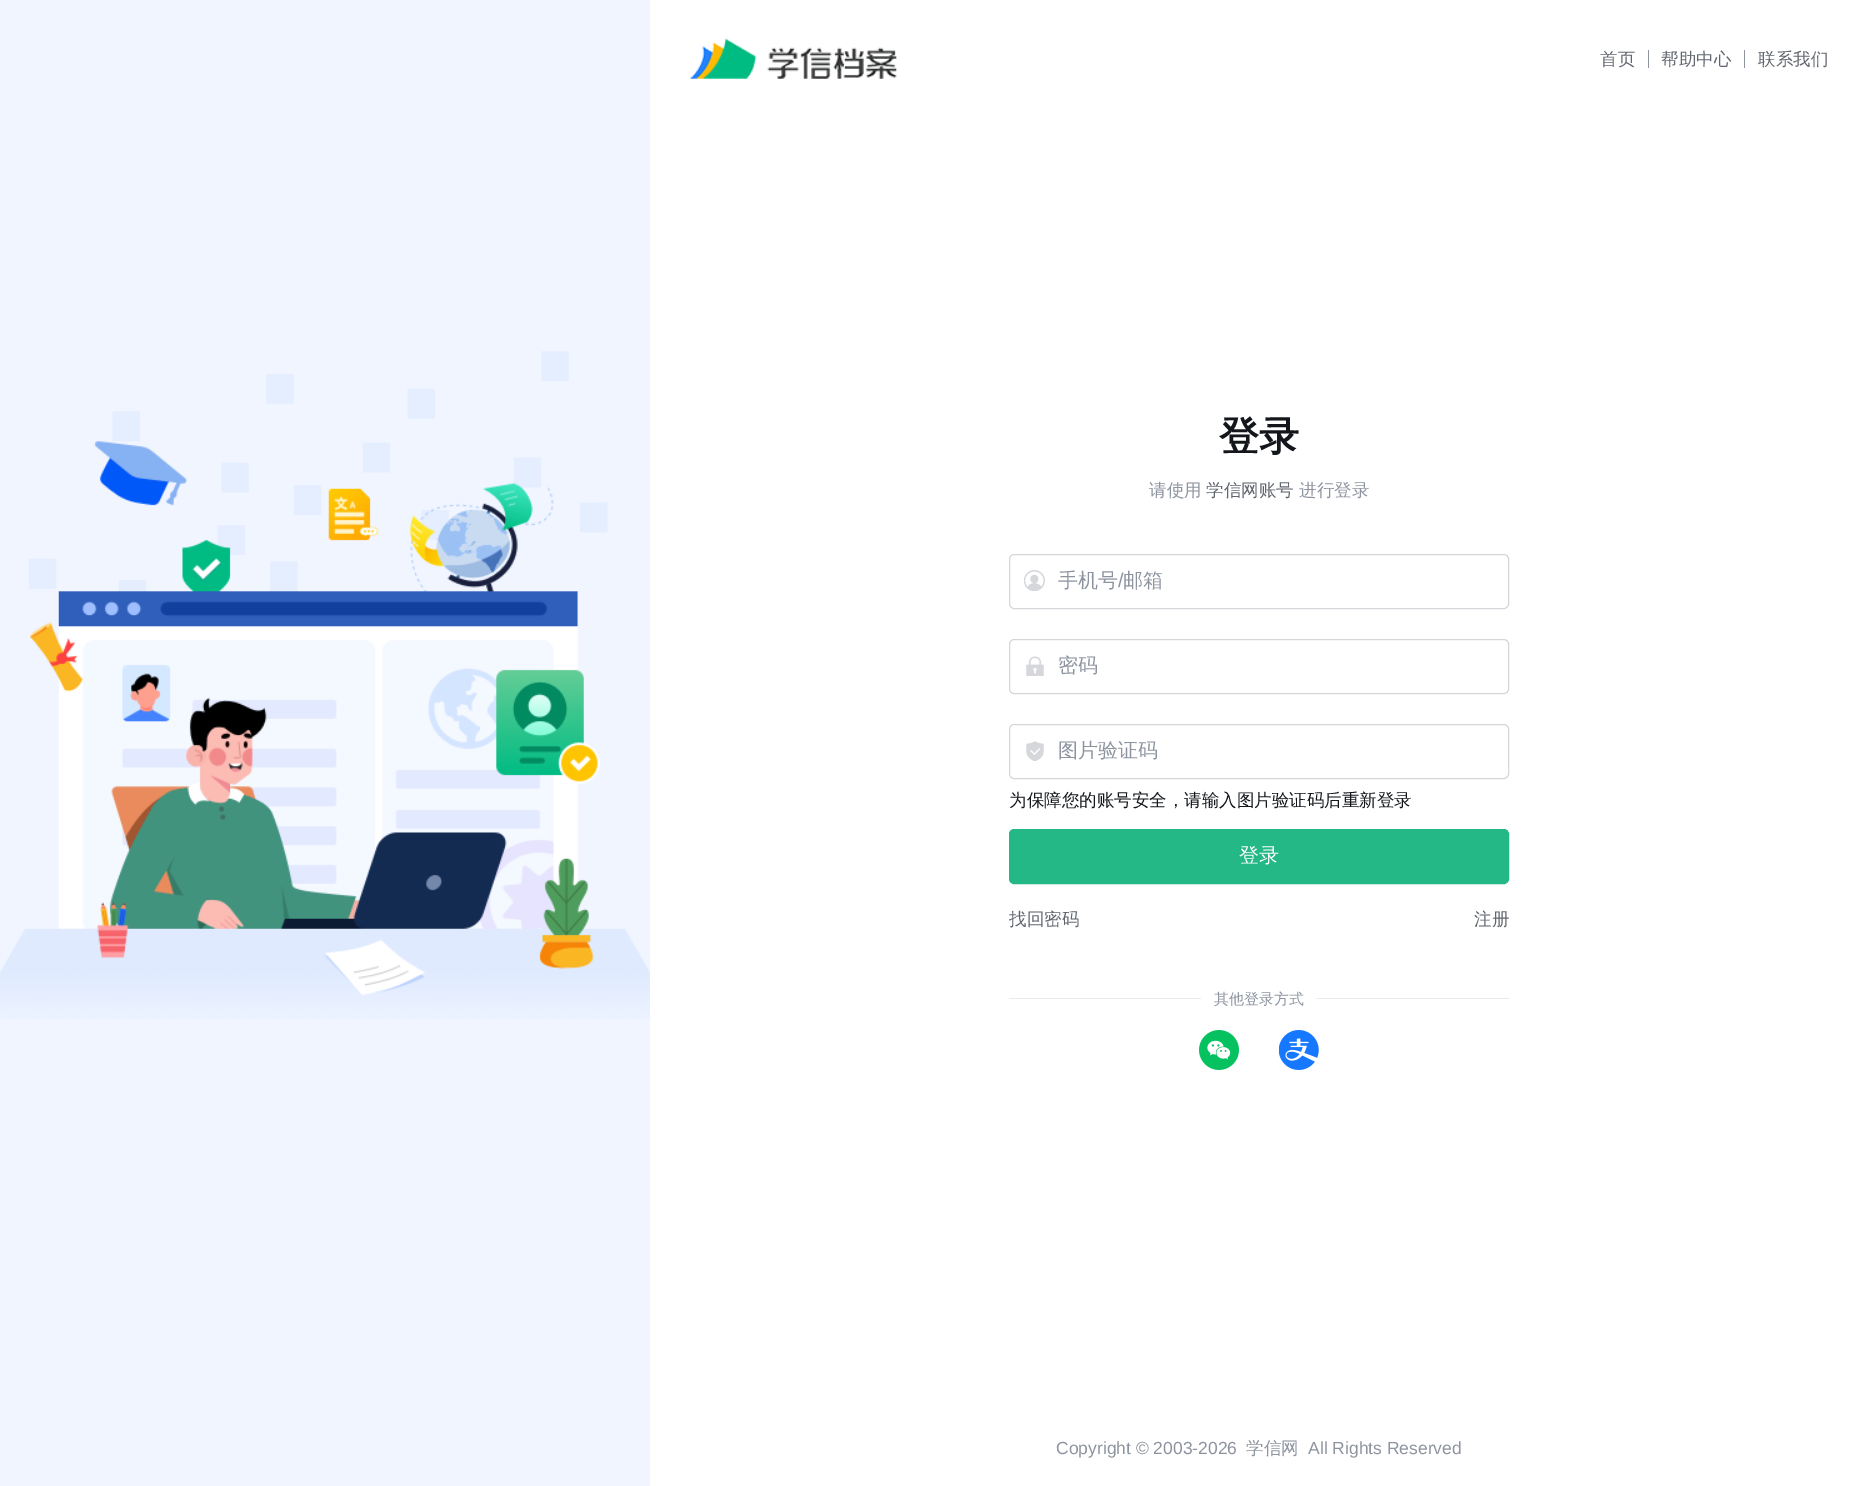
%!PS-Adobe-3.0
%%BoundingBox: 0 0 1867 1486
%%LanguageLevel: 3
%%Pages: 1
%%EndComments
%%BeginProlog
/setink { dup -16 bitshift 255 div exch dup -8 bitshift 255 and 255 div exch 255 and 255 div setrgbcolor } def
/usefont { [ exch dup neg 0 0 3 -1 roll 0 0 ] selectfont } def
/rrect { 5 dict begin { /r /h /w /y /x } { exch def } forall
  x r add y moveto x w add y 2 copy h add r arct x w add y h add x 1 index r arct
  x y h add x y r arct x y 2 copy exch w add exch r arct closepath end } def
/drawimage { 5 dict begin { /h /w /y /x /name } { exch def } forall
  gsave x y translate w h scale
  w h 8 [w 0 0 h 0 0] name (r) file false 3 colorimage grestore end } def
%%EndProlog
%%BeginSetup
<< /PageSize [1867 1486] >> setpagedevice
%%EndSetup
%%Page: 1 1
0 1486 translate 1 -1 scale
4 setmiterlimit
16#FFFFFF setink
0 0 1867 1486 rectfill
16#F0F5FF setink
0 0 650 1486 rectfill
(img1.raw) 0 351 650 668 drawimage
(img2.raw) 690 38 207 41 drawimage
/WenQuanYiZenHei-Medium 17.5 usefont
16#60656E setink
1600 65 moveto (首页) show
16#8D949F setink
1648 50 1 18 rectfill
16#60656E setink
1661 65 moveto (帮助中心) show
16#8D949F setink
1744 50 1 18 rectfill
16#60656E setink
1758 65 moveto (联系我们) show
/WenQuanYiZenHei-Bold 40 usefont
16#13161B setink
1219 450 moveto (登录) show
/WenQuanYiZenHei-Medium 17.5 usefont
16#8D949F setink
1149 496 moveto (请使用) show
16#60656E setink
1206 496 moveto (学信网账号) show
16#8D949F setink
1299 496 moveto (进行登录) show
16#D5D7DB setink
1009.5 554.5 499 54 4.5 rrect stroke
(img3.raw) 1024 570 21 21 drawimage
/WenQuanYiZenHei-Medium 20 usefont
16#8D949F setink
1058 587 moveto (手机号) show
/LiberationSans-Regular 20 usefont
1118 587 moveto (/) show
/WenQuanYiZenHei-Medium 20 usefont
1123 587 moveto (邮箱) show
16#D5D7DB setink
1009.5 639.5 499 54 4.5 rrect stroke
(img4.raw) 1026 656 18 20 drawimage
16#8D949F setink
1058 672 moveto (密码) show
16#D5D7DB setink
1009.5 724.5 499 54 4.5 rrect stroke
(img5.raw) 1026 741 18 20 drawimage
16#8D949F setink
1058 757 moveto (图片验证码) show
/WenQuanYiZenHei-Medium 17.5 usefont
16#13161B setink
1009 806 moveto (为保障您的账号安全，请输入图片验证码后重新登录) show
16#25B887 setink
1009.5 829.5 499 54 4.5 rrect gsave fill grestore
stroke
/WenQuanYiZenHei-Medium 20 usefont
16#FFFFFF setink
1239 862 moveto (登录) show
/WenQuanYiZenHei-Medium 17.5 usefont
16#60656E setink
1009 925 moveto (找回密码) show
1474 925 moveto (注册) show
16#E8EAED setink
1009 998 500 1 rectfill
16#FFFFFF setink
1201 998 115 1 rectfill
/WenQuanYiZenHei-Medium 15 usefont
16#8D949F setink
1214 1004 moveto (其他登录方式) show
(img6.raw) 1199 1030 40 40 drawimage
(img7.raw) 1279 1030 40 40 drawimage
/LiberationSans-Regular 17.5 usefont
1056 1454 moveto (Copyright © 2003-2026) show
/WenQuanYiZenHei-Medium 17.5 usefont
1246 1454 moveto (学信网) show
/LiberationSans-Regular 17.5 usefont
1308 1454 moveto (All Rights Reserved) show
showpage
%%EOF
